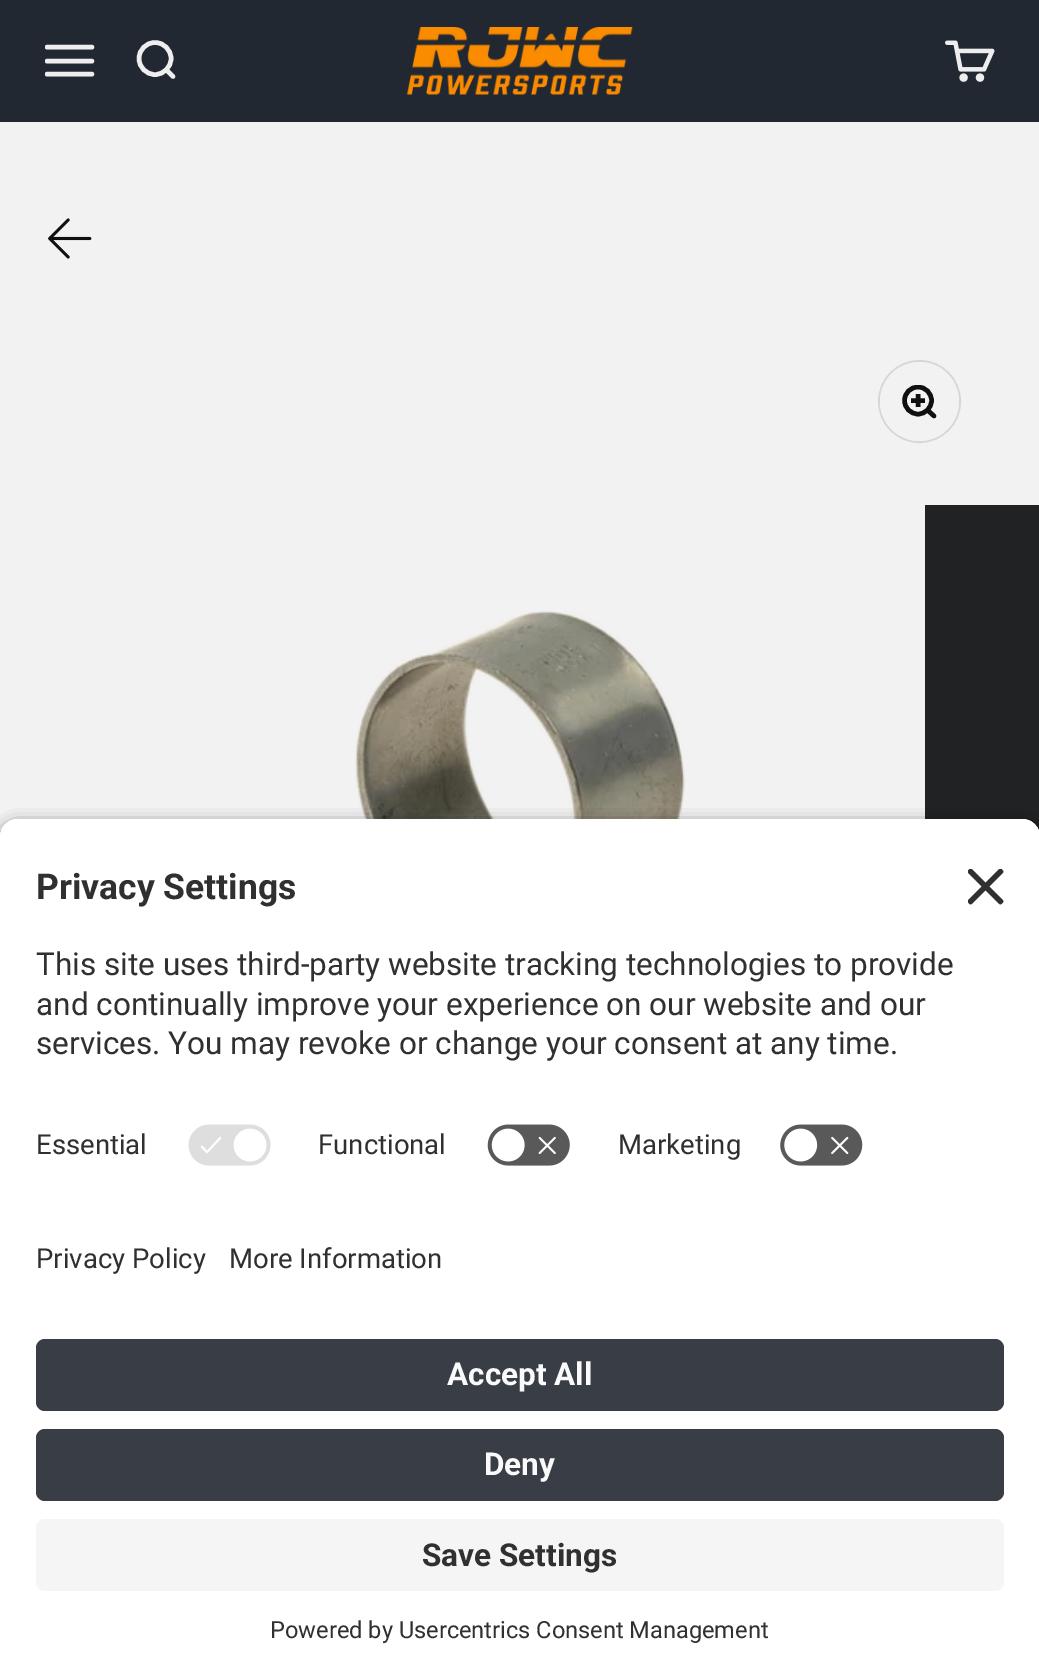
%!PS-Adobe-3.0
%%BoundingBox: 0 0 1039 1680
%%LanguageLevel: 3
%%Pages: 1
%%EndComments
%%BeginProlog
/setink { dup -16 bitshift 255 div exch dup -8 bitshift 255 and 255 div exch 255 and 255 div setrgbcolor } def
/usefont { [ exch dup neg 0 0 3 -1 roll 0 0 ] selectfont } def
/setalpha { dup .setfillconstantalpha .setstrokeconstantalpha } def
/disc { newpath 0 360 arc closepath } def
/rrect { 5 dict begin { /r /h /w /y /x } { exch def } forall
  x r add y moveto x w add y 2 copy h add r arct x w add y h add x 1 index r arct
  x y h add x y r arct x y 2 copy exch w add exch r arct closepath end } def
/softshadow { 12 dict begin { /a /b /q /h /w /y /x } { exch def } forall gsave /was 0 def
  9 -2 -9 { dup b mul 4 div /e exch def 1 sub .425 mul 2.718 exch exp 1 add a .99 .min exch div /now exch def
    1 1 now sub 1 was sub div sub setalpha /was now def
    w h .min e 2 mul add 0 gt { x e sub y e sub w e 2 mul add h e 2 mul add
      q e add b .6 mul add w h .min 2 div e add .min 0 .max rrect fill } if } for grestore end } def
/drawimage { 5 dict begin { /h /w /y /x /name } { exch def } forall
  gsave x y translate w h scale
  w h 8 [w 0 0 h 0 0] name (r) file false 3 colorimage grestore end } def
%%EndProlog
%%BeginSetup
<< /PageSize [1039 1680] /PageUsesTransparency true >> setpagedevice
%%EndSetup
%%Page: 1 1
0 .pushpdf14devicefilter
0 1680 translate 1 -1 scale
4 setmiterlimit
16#F2F2F2 setink
0 0 1039 1680 rectfill
16#222831 setink
0 0 1039 122 rectfill
gsave
45 36 50 50 rectclip
16#EEEEEE setink
4.5 setlinewidth
1 setlinecap
47 47 moveto 92 47 lineto 47 61 moveto 92 61 lineto 47 74 moveto 92 74 lineto stroke
grestore
16#EEEEEE setink
4.5 setlinewidth
155 58.5 16 disc stroke
1 setlinecap
1 setlinejoin
166.5 70 moveto 173 76.5 lineto stroke
(img1.raw) 407 27 226 68 drawimage
(img2.raw) 945 40 50 42 drawimage
(img3.raw) 48 218 44 41 drawimage
16#D7D7D7 setink
2 setlinewidth
0 setlinecap
0 setlinejoin
919.5 401.5 40.5 disc stroke
16#F2F2F2 setink
919.5 401.5 39.5 disc fill
gsave
902 385 34 34 rectclip
16#111011 setink
4.5 setlinewidth
918 400.5 13.5 disc stroke
grestore
16#111011 setink
4.5 setlinewidth
1 setlinecap
1 setlinejoin
928 410.5 moveto 934 416 lineto stroke
0 setlinecap
0 setlinejoin
918 394 moveto 918 407 lineto 911 400.5 moveto 925 400.5 lineto stroke
(img4.raw) 355 611 330 208 drawimage
16#202223 setink
925 505 114 326 rectfill
16#000000 setink
0 826 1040 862 18 8 0.8 softshadow
16#FFFFFF setink
18 819 moveto 1022 819 lineto 1032 819 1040 827 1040 837 curveto 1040 1208 lineto 0 1208 lineto 0 837 lineto 0 827 8 819 18 819 curveto closepath fill
18 819 moveto 1022 819 lineto 1032 819 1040 827 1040 837 curveto 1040 1109 lineto 0 1109 lineto 0 837 lineto 0 827 8 819 18 819 curveto closepath fill
/Roboto-Bold 35.5 usefont
16#303030 setink
36 899 moveto (Privacy Settings) show
(img5.raw) 968 869 36 36 drawimage
/Roboto-Regular 31.5 usefont
[
    [(This site uses third-party website tracking technologies to provide) 36 975]
    [(and continually improve your experience on our website and our) 36 1015]
    [(services. You may revoke or change your consent at any time.) 36 1054]
] { aload pop moveto show } forall
/Roboto-Regular 27.5 usefont
36 1154 moveto (Essential) show
(img6.raw) 188 1124 83 42 drawimage
318 1154 moveto (Functional) show
(img7.raw) 487 1124 83 42 drawimage
618 1154 moveto (Marketing) show
(img8.raw) 780 1124 83 42 drawimage
16#FFFFFF setink
0 1208 1039 472 rectfill
16#303030 setink
36 1268 moveto (Privacy Policy) show
229 1268 moveto (More Information) show
16#393E46 setink
36 1339 968 72 9 rrect fill
/Roboto-Bold 31.5 usefont
16#FAFAFA setink
447 1385 moveto (Accept All) show
16#393E46 setink
36 1429 968 72 9 rrect fill
16#FAFAFA setink
484 1475 moveto (Deny) show
16#F5F5F5 setink
36 1519 968 72 9 rrect fill
16#303030 setink
422 1566 moveto (Save Settings) show
/Roboto-Regular 23.6 usefont
270 1638 moveto (Powered by Usercentrics Consent Management) show
.poppdf14devicefilter showpage
%%EOF
